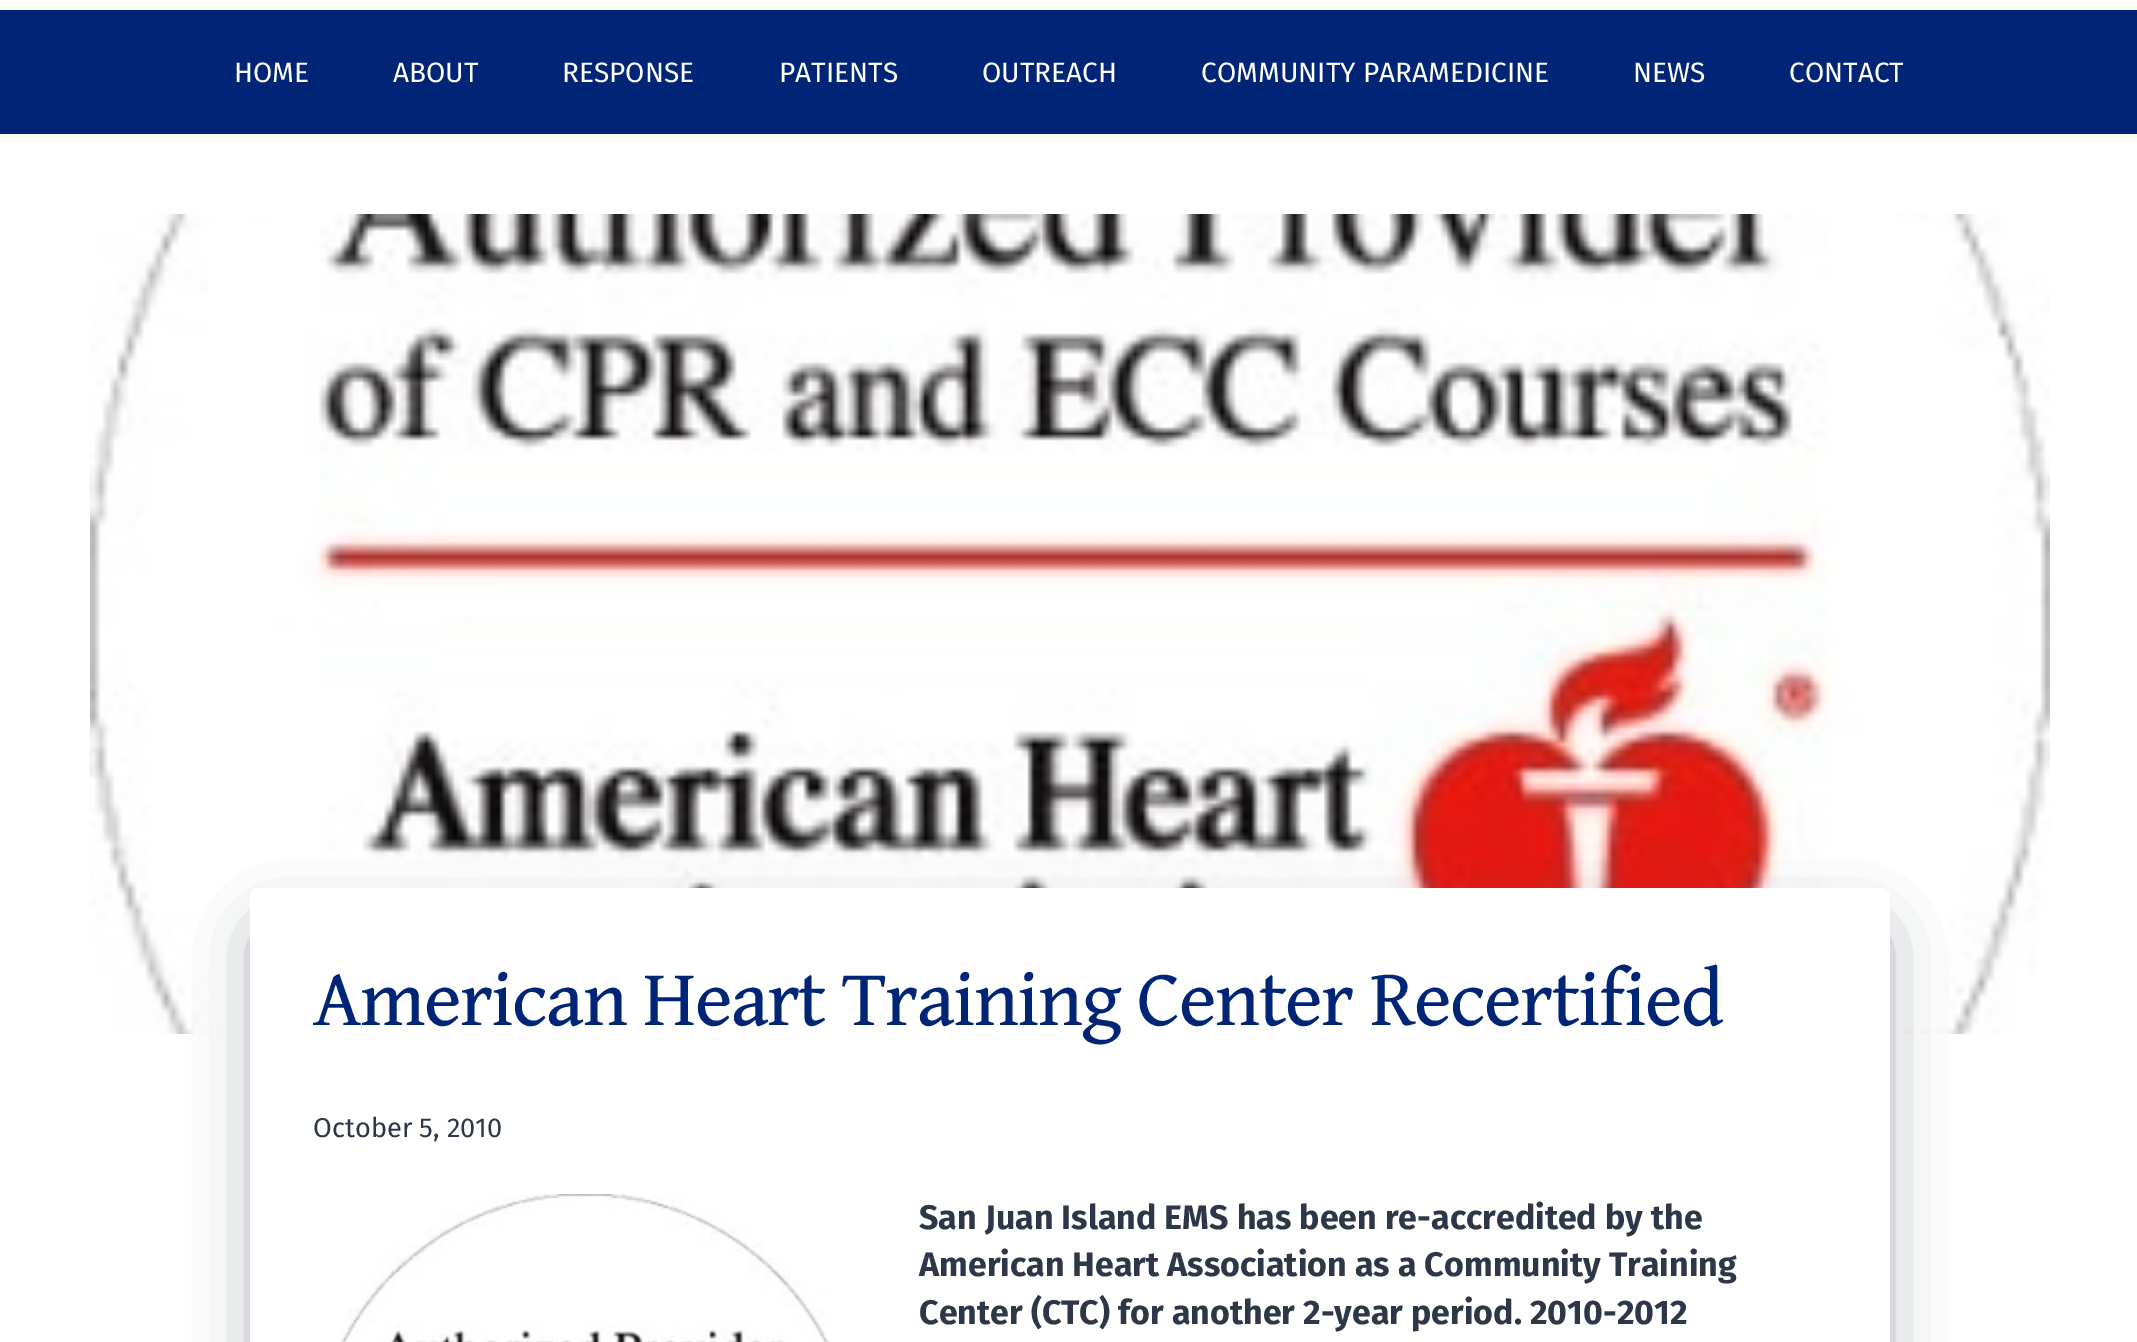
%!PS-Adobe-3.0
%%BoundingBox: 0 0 2137 1342
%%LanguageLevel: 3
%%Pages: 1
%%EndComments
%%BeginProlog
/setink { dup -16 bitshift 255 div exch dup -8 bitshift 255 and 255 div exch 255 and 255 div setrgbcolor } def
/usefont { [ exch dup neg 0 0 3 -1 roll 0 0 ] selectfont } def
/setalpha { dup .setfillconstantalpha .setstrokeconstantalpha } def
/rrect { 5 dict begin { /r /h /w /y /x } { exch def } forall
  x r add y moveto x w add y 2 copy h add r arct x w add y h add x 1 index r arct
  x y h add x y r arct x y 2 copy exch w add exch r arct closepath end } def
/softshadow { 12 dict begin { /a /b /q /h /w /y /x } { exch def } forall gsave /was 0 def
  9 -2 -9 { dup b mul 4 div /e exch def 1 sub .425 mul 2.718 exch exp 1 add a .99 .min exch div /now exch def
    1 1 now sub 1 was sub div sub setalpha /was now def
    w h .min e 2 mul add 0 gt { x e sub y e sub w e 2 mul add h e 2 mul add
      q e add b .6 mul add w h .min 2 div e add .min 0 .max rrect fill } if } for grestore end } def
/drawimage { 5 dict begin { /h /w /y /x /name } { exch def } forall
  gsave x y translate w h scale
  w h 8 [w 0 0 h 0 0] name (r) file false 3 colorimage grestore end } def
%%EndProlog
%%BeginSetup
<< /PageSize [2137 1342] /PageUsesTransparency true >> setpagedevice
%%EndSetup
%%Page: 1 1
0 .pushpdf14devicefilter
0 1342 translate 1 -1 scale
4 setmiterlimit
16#FFFFFF setink
0 0 2137 1342 rectfill
16#002577 setink
0 10 2137 124 rectfill
/FiraSans-Regular 28 usefont
16#FFFFFF setink
[
    [(HOME) 234 82]
    [(ABOUT) 393 82]
    [(RESPONSE) 562 82]
    [(PATIENTS) 779 82]
    [(OUTREACH) 982 82]
    [(COMMUNITY PARAMEDICINE) 1201 82]
    [(NEWS) 1633 82]
    [(CONTACT) 1789 82]
] { aload pop moveto show } forall
(img1.raw) 90 214 1960 820 drawimage
16#4A5568 setink
270 938 1600 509 0 35 0.75 softshadow
16#FFFFFF setink
250 888 1640 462 8 rrect fill
/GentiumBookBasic-Regular 80 usefont
16#002577 setink
313 1025 moveto -1.5 0 (American Heart Training Center Recertified) ashow
/FiraSans-Regular 27.25 usefont
16#2D3748 setink
313 1137 moveto (October 5, 2010) show
(img2.raw) 341 1194 488 148 drawimage
/FiraSans-Bold 34 usefont
[
    [(San Juan Island EMS has been re-accredited by the) 919 1229]
    [(American Heart Association as a Community Training) 919 1276]
    [(Center \(CTC\) for another 2-year period. 2010-2012) 919 1324]
] { aload pop moveto show } forall
.poppdf14devicefilter showpage
%%EOF
